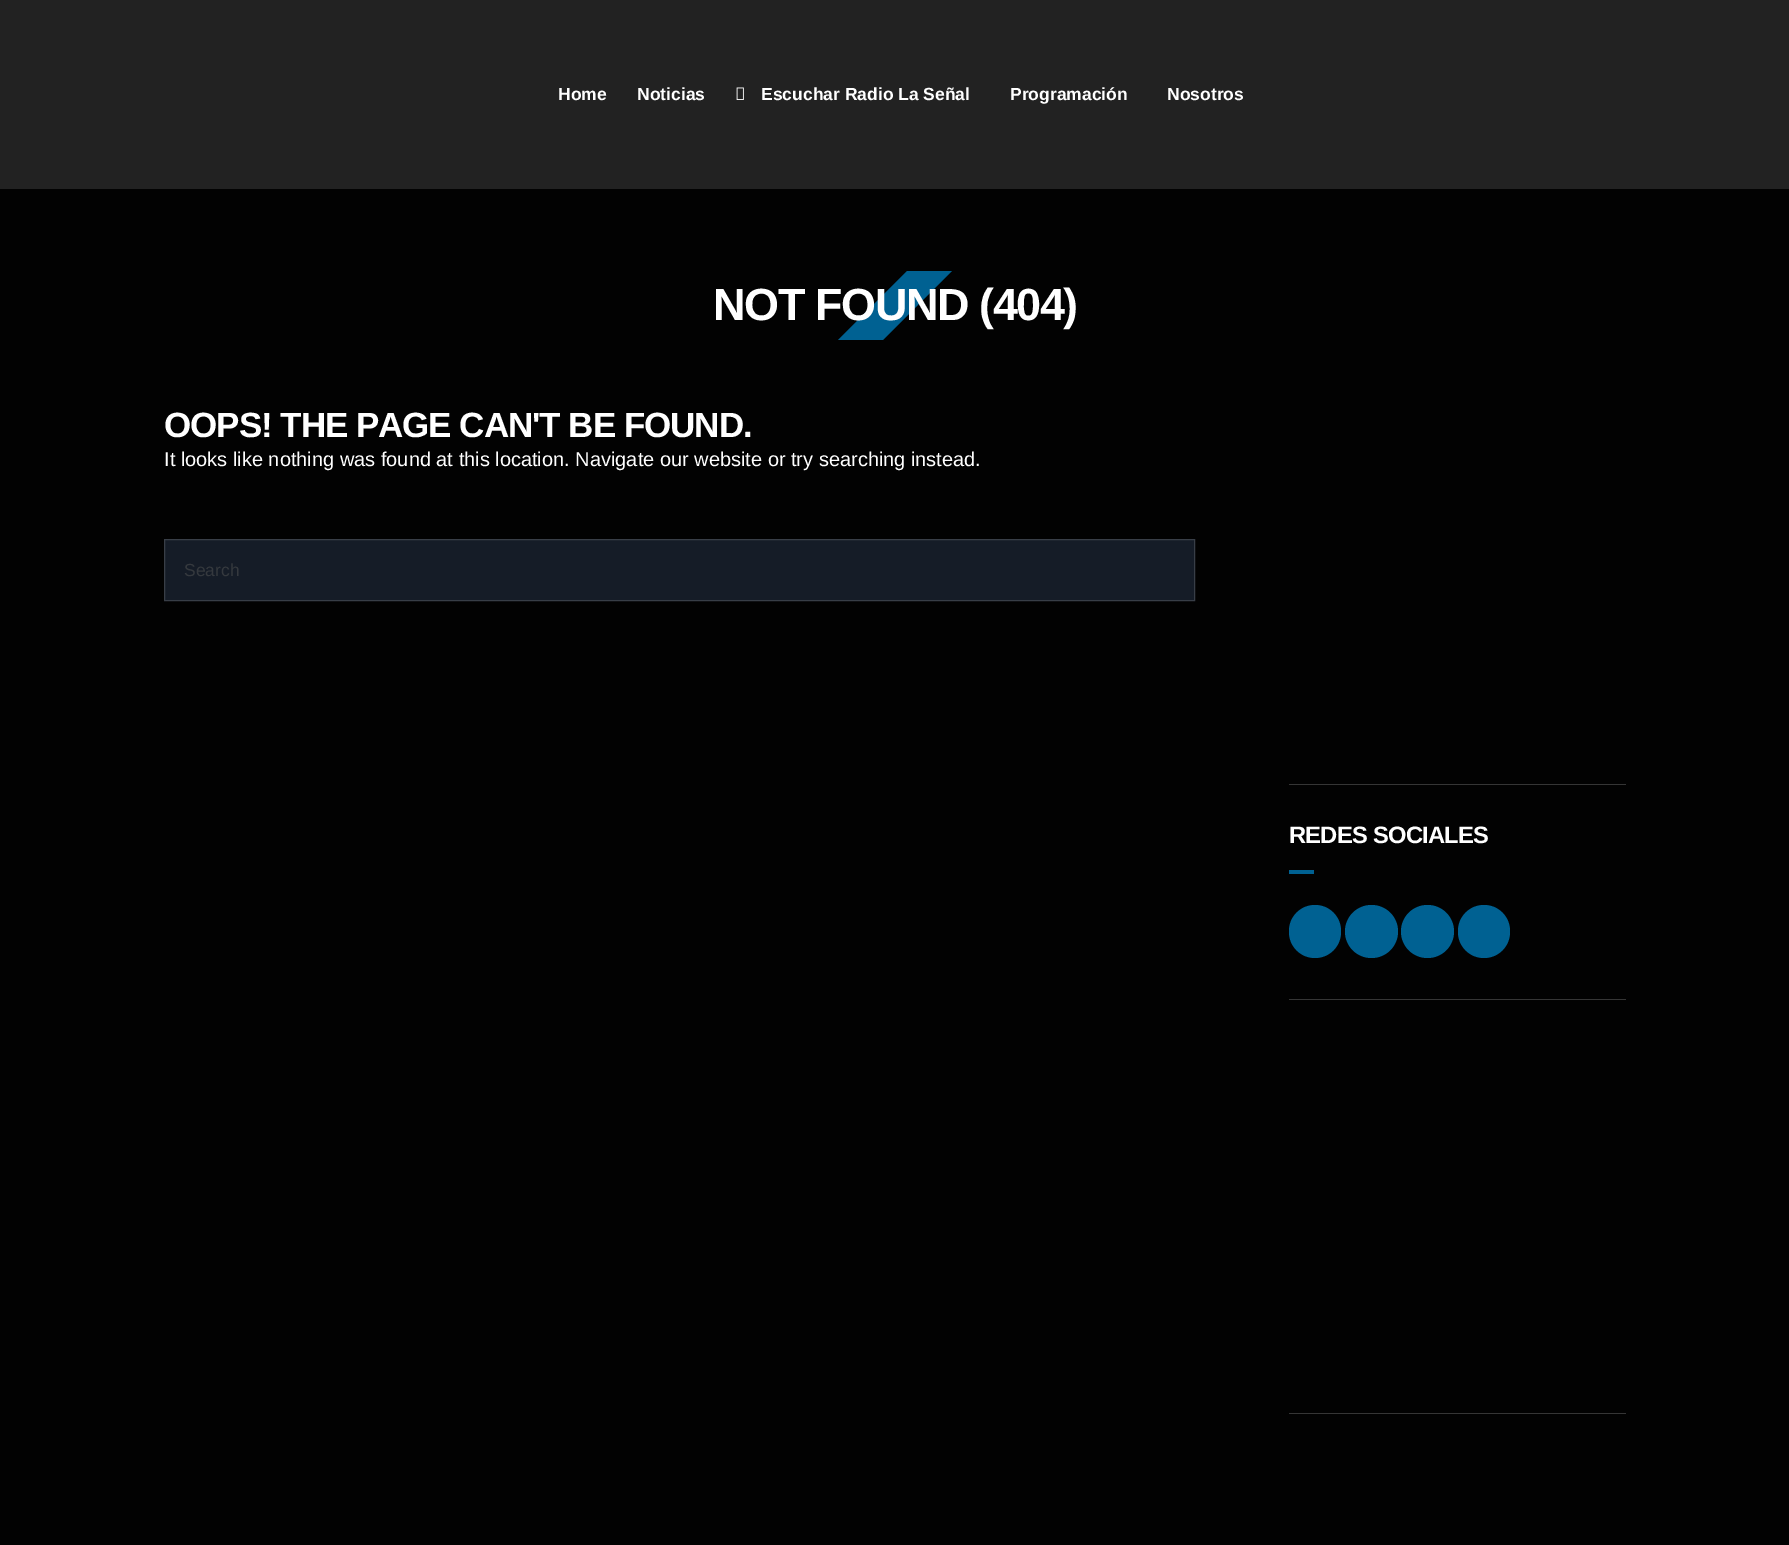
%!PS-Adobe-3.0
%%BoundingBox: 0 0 1789 1545
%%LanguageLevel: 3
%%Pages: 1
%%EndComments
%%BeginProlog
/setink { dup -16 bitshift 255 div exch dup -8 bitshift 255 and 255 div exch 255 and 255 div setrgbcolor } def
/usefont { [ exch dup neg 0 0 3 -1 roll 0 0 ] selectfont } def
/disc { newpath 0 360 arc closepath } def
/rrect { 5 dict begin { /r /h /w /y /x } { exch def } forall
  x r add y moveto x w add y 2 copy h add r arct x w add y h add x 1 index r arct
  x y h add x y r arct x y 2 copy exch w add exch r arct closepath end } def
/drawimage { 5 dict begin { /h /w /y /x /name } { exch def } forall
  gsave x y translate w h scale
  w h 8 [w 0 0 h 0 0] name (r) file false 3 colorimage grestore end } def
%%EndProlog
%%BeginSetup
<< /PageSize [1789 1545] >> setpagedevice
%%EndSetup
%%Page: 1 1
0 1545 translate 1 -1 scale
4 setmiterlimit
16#020202 setink
0 0 1789 1545 rectfill
16#222222 setink
0 0 1789 189 rectfill
/LiberationSans-Bold 17.5 usefont
16#FFFFFF setink
558 100 moveto (Home) show
637 100 moveto (Noticias) show
(img1.raw) 736 87 8 13 drawimage
[
    [(Escuchar Radio La Señal) 761 100]
    [(Programación) 1010 100]
    [(Nosotros) 1167 100]
] { aload pop moveto show } forall
16#006192 setink
907 271 moveto 952 271 lineto 883 340 lineto 838 340 lineto closepath fill
/LiberationSans-Bold 45 usefont
16#FFFFFF setink
713 320 moveto -1.4 0 (NOT FOUND \(404\)) ashow
/LiberationSans-Bold 35 usefont
164 437 moveto -1.05 0 (OOPS! THE PAGE CAN'T BE FOUND.) ashow
/LiberationSans-Regular 20 usefont
164 466 moveto (It looks like nothing was found at this location. Navigate our website or try searching instead.) show
16#151C27 setink
164.5 539.5 moveto 1194.5 539.5 lineto 1194.5 600.5 lineto 164.5 600.5 lineto closepath gsave fill grestore
16#383E47 setink
stroke
/LiberationSans-Regular 17.5 usefont
16#35393E setink
184 576 moveto (Search) show
16#353535 setink
1289 784 337 1 rectfill
1289 999 337 1 rectfill
/LiberationSans-Bold 23.75 usefont
16#FFFFFF setink
1289 843 moveto -0.75 0 (REDES SOCIALES) ashow
16#006192 setink
1289 870 25 4 rectfill
1289 905 52 53 26 rrect fill
1371.5 931.5 26.5 disc fill
1427.5 931.5 26.5 disc fill
1458 905 52 53 26 rrect fill
16#353535 setink
1289 1413 337 1 rectfill
showpage
%%EOF
